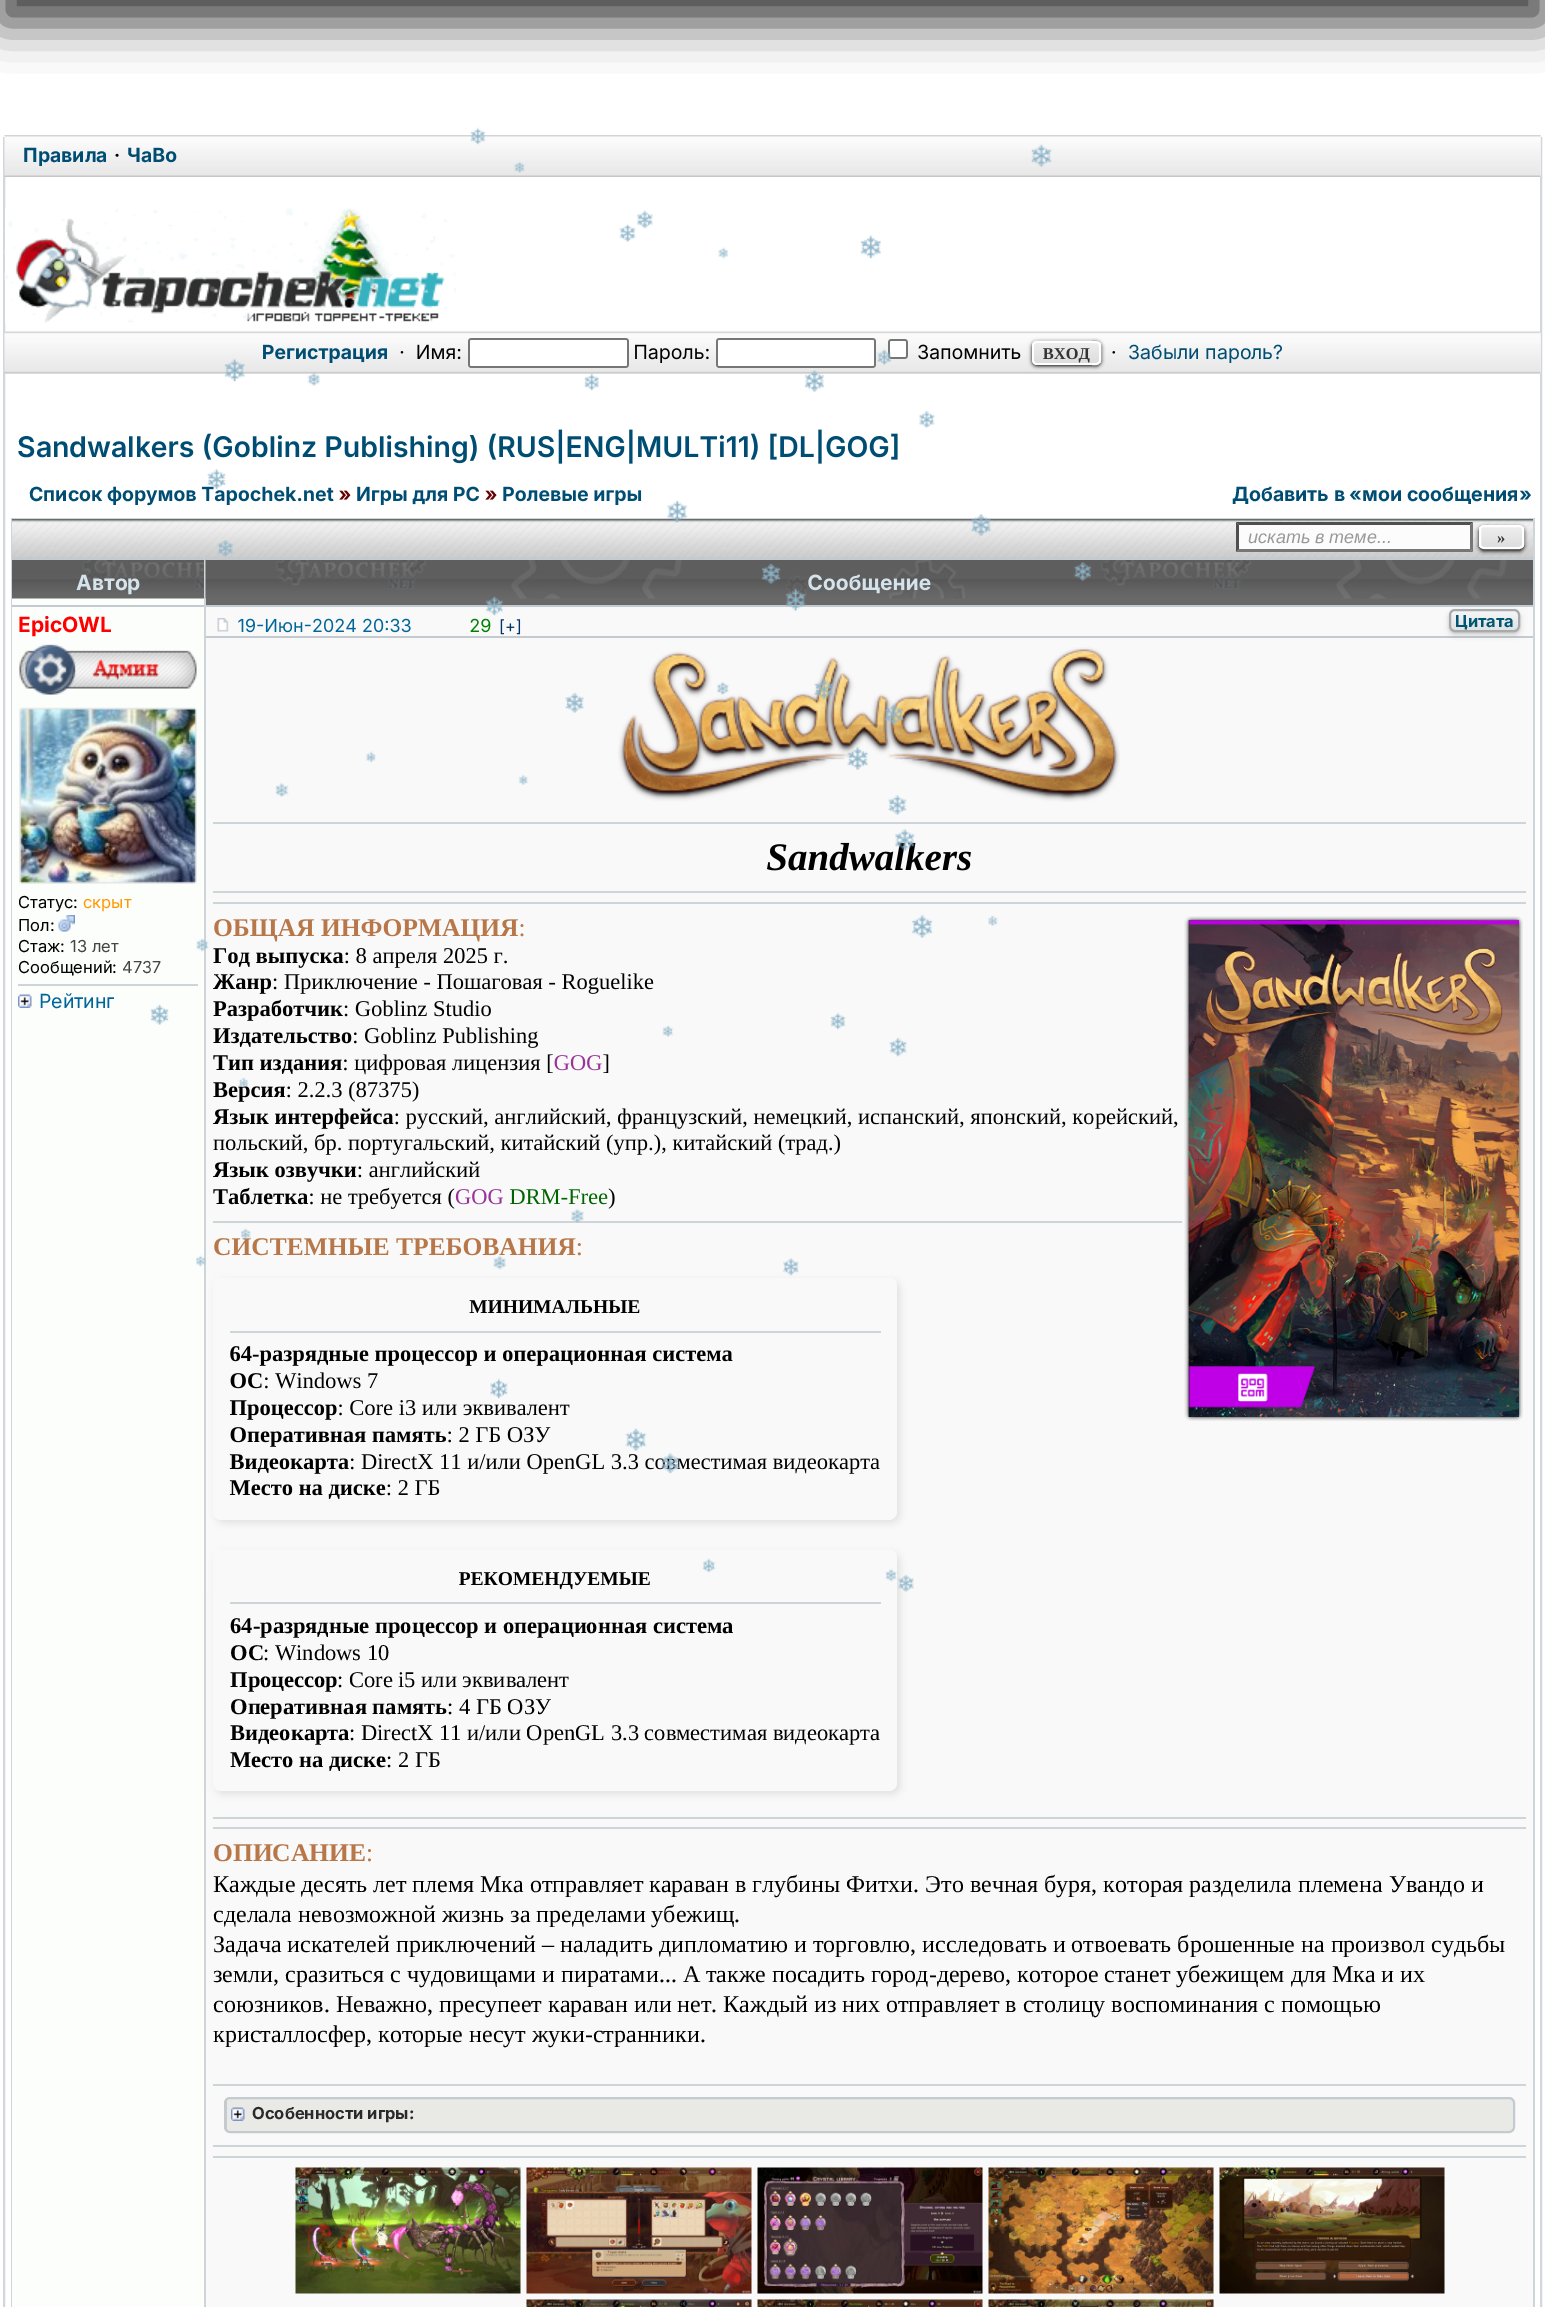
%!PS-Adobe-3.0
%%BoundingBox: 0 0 1545 2307
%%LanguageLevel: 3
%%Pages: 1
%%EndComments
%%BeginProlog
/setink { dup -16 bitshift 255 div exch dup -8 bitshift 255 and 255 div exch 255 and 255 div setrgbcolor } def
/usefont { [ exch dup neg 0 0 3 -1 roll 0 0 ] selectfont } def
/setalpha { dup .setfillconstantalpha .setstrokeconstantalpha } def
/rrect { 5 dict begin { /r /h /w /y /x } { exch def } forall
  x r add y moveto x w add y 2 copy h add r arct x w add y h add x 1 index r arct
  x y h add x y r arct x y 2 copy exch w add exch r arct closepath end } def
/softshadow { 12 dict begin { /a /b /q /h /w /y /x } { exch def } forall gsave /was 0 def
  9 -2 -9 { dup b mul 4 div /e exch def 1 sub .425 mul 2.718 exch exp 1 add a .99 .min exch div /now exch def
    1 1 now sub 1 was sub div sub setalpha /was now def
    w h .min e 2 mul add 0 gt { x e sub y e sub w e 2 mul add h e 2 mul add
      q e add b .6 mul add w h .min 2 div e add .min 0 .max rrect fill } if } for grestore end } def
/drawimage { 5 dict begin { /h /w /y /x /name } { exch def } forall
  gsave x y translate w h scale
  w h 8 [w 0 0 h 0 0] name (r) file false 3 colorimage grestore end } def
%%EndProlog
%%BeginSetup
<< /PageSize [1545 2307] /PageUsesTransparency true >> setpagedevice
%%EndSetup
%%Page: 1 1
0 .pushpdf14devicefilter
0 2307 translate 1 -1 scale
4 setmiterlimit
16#FFFFFF setink
0 0 1545 2307 rectfill
16#000000 setink
0 -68 1545 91 0 22.5 0.75 softshadow
16#D1D7DC setink
2 setlinewidth
4 138 1537 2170 rectstroke
16#EFEFEF setink
1540 135 1 42 rectfill
(img2.raw) 4 135 1537 42 drawimage
/Inter-Bold 19.5 usefont
16#004D73 setink
127 162 moveto (ЧаВо) show
(img3.raw) 4 208 452 115 drawimage
16#EFEFEF setink
5 332 1536 42 rectfill
(img4.raw) 4 331 1537 43 drawimage
16#004D73 setink
262 359 moveto (Регистрация) show
/Inter-Regular 19.5 usefont
16#000000 setink
399 359 moveto (·) show
416 359 moveto (Имя:) show
16#FFFFFF setink
469 339 159 28 2 rrect gsave fill grestore
16#767676 setink
stroke
16#000000 setink
633 359 moveto (Пароль:) show
16#FFFFFF setink
717 339 158 28 2 rrect gsave fill grestore
16#767676 setink
stroke
16#FFFFFF setink
889 340 18 18 2 rrect gsave fill grestore
16#767676 setink
stroke
16#000000 setink
917 359 moveto (Запомнить) show
1032 342 69 24 5 2 1 softshadow
gsave
1032 341 69 24 5 rrect clip newpath
gsave 1032 342 moveto 1101 342 lineto 1101 363 lineto 1032 363 lineto closepath clip newpath
<< /ShadingType 2 /ColorSpace /DeviceRGB /Coords [1067 342 1067 363] /Extend [true true] /Function << /FunctionType 2 /Domain [0 1] /C0 [0.933 0.933 0.933] /C1 [0.867 0.867 0.867] /N 1 >> >> shfill grestore
grestore
16#FFFFFF setink
1033 342 67 22 4 rrect stroke
/LiberationSerif-Bold 16.5 usefont
16#333333 setink
1043 359 moveto (ВХОД) show
/Inter-SemiBold 28.5 usefont
16#004D73 setink
17 457 moveto (Sandwalkers \(Goblinz Publishing\) \(RUS|ENG|MULTi11\) [DL|GOG]) show
/Inter-Bold 19.5 usefont
29 501 moveto (Список форумов Tapochek.net) show
16#660000 setink
338 501 moveto (») show
16#004D73 setink
356 501 moveto (Игры для PC) show
16#660000 setink
485 501 moveto (») show
16#004D73 setink
502 501 moveto (Ролевые игры) show
16#CDD5D8 setink
11 518 1524 2 rectfill
11 518 2 40 rectfill
(img5.raw) 12 519 1521 39 drawimage
16#FCFEFC setink
12 598 192 7 rectfill
(img6.raw) 12 560 192 39 drawimage
[
    [12 558 194 2 16#C3CBD1]
    [204 558 2 47 16#CDD5D8]
    [206 598 1327 7 16#696969]
] { aload pop setink rectfill } forall
(img7.raw) 205 559 1328 40 drawimage
16#C3CBD1 setink
206 558 1327 2 rectfill
/Inter-Bold 21 usefont
16#D5E4EC setink
807 590 moveto (Сообщение) show
[
    [206 607 1327 1700 16#F9F9F9]
    [12 607 192 1700 16#FCFEFC]
    [12 605 1521 2 16#C3CBD1]
    [204 605 2 1702 16#CDD5D8]
] { aload pop setink rectfill } forall
(img8.raw) 19 644 178 51 drawimage
(img9.raw) 19 707 178 177 drawimage
/Inter-Regular 16.5 usefont
16#444444 setink
122 973 moveto (4737) show
16#CDD5D8 setink
18 984 180 2 rectfill
16#C3CBD1 setink
206 636 1327 2 rectfill
(img12.raw) 217 618 12 14 drawimage
/Inter-Regular 18 usefont
16#006699 setink
238 632 moveto (19-Июн-2024 20:33) show
16#008000 setink
469 632 moveto (29) show
/Inter-Regular 16.5 usefont
16#003366 setink
499 632 moveto ([+]) show
(img13.raw) 618 648 502 154 drawimage
16#CDD5D8 setink
213 822 1313 2 rectfill
/LiberationSerif-BoldItalic 39 usefont
16#000000 setink
766 870 moveto (Sandwalkers) show
16#CDD5D8 setink
213 891 1313 2 rectfill
213 902 1313 2 rectfill
/LiberationSerif-Bold 25.5 usefont
16#B77749 setink
213 936 moveto (ОБЩАЯ ИНФОРМАЦИЯ) show
/LiberationSerif-Regular 25.5 usefont
518 936 moveto (:) show
/LiberationSerif-Bold 22.5 usefont
16#000000 setink
213 963 moveto (Год выпуска) show
/LiberationSerif-Regular 22.5 usefont
344 963 moveto (: 8 апреля 2025 г.) show
/LiberationSerif-Bold 22.5 usefont
213 989 moveto (Жанр) show
/LiberationSerif-Regular 22.5 usefont
272 989 moveto (: Приключение - Пошаговая - Roguelike) show
/LiberationSerif-Bold 22.5 usefont
213 1016 moveto (Разработчик) show
/LiberationSerif-Regular 22.5 usefont
343 1016 moveto (: Goblinz Studio) show
/LiberationSerif-Bold 22.5 usefont
213 1043 moveto (Издательство) show
/LiberationSerif-Regular 22.5 usefont
352 1043 moveto (: Goblinz Publishing) show
/LiberationSerif-Bold 22.5 usefont
213 1070 moveto (Тип издания) show
/LiberationSerif-Regular 22.5 usefont
342 1070 moveto (: цифровая лицензия [) show
16#993399 setink
554 1070 moveto (GOG) show
16#000000 setink
602 1070 moveto (]) show
/LiberationSerif-Bold 22.5 usefont
213 1097 moveto (Версия) show
/LiberationSerif-Regular 22.5 usefont
286 1097 moveto (: 2.2.3 \(87375\)) show
/LiberationSerif-Bold 22.5 usefont
213 1124 moveto (Язык интерфейса) show
/LiberationSerif-Regular 22.5 usefont
394 1124 moveto (: русский, английский, французский, немецкий, испанский, японский, корейский,) show
213 1150 moveto (польский, бр. португальский, китайский \(упр.\), китайский \(трад.\)) show
/LiberationSerif-Bold 22.5 usefont
213 1177 moveto (Язык озвучки) show
/LiberationSerif-Regular 22.5 usefont
357 1177 moveto (: английский) show
/LiberationSerif-Bold 22.5 usefont
213 1204 moveto (Таблетка) show
/LiberationSerif-Regular 22.5 usefont
308 1204 moveto (: не требуется \() show
16#993399 setink
455 1204 moveto (GOG) show
16#006400 setink
509 1204 moveto (DRM-Free) show
16#000000 setink
608 1204 moveto (\)) show
16#CDD5D8 setink
213 1221 969 2 rectfill
/LiberationSerif-Bold 25.5 usefont
16#B77749 setink
213 1255 moveto (СИСТЕМНЫЕ ТРЕБОВАНИЯ) show
/LiberationSerif-Regular 25.5 usefont
576 1255 moveto (:) show
16#000000 setink
216 1281 684 242 8 4 0.1 softshadow
16#F9F9F9 setink
213 1278 684 242 8 rrect fill
/LiberationSerif-Bold 19.5 usefont
16#000000 setink
469 1313 moveto (МИНИМАЛЬНЫЕ) show
16#CDD5D8 setink
230 1331 651 2 rectfill
/LiberationSerif-Bold 22.5 usefont
16#000000 setink
230 1361 moveto (64-разрядные процессор и операционная система) show
230 1388 moveto (ОС) show
/LiberationSerif-Regular 22.5 usefont
263 1388 moveto (: Windows 7) show
/LiberationSerif-Bold 22.5 usefont
230 1415 moveto (Процессор) show
/LiberationSerif-Regular 22.5 usefont
337 1415 moveto (: Core i3 или эквивалент) show
/LiberationSerif-Bold 22.5 usefont
230 1442 moveto (Оперативная память) show
/LiberationSerif-Regular 22.5 usefont
447 1442 moveto (: 2 ГБ ОЗУ) show
/LiberationSerif-Bold 22.5 usefont
230 1469 moveto (Видеокарта) show
/LiberationSerif-Regular 22.5 usefont
349 1469 moveto (: DirectX 11 и/или OpenGL 3.3 совместимая видеокарта) show
/LiberationSerif-Bold 22.5 usefont
230 1495 moveto (Место на диске) show
/LiberationSerif-Regular 22.5 usefont
386 1495 moveto (: 2 ГБ) show
216 1553 684 241 8 4 0.1 softshadow
16#F9F9F9 setink
213 1550 684 241 8 rrect fill
/LiberationSerif-Bold 19.5 usefont
16#000000 setink
459 1585 moveto (РЕКОМЕНДУЕМЫЕ) show
(img1.raw) 150 127 942 1465 drawimage
/Inter-Bold 19.5 usefont
16#004D73 setink
23 162 moveto (Правила) show
/Inter-SemiBold 19.5 usefont
16#000000 setink
114 162 moveto (·) show
/Inter-Regular 19.5 usefont
1111 359 moveto (·) show
16#004D73 setink
1128 359 moveto (Забыли пароль?) show
/Inter-Bold 19.5 usefont
1232 501 moveto (Добавить в «мои сообщения») show
16#CDD5D8 setink
1533 518 2 1789 rectfill
16#FCFCFC setink
1236 522 237 30 rectfill
16#4F4F4F setink
1236 522 moveto 1473 522 lineto 1470 525 lineto 1239 525 lineto closepath fill
16#767676 setink
1473 522 moveto 1473 552 lineto 1470 549 lineto 1470 525 lineto closepath fill
1473 552 moveto 1236 552 lineto 1239 549 lineto 1470 549 lineto closepath fill
16#4F4F4F setink
1236 552 moveto 1236 522 lineto 1239 525 lineto 1239 549 lineto closepath fill
/LiberationSans-Italic 18 usefont
16#999999 setink
1248 543 moveto (искать в теме...) show
16#000000 setink
1479 527 45 24 5 2 1 softshadow
gsave
1479 525 45 24 5 rrect clip newpath
gsave 1479 527 moveto 1524 527 lineto 1524 548 lineto 1479 548 lineto closepath clip newpath
<< /ShadingType 2 /ColorSpace /DeviceRGB /Coords [1502 527 1502 548] /Extend [true true] /Function << /FunctionType 2 /Domain [0 1] /C0 [0.933 0.933 0.933] /C1 [0.867 0.867 0.867] /N 1 >> >> shfill grestore
grestore
16#FFFFFF setink
1480 526 43 22 4 rrect stroke
/LiberationSerif-Bold 16.5 usefont
16#333333 setink
1497 543 moveto (») show
16#CDD5D8 setink
11 558 1 1749 rectfill
/Inter-Bold 21 usefont
16#D5E4EC setink
76 590 moveto (Автор) show
16#FF0000 setink
18 632 moveto (EpicOWL) show
/Inter-Regular 16.5 usefont
16#000000 setink
18 908 moveto (Статус:) show
16#FF9800 setink
83 908 moveto (скрыт) show
16#000000 setink
18 931 moveto (Пол:) show
(img10.raw) 58 915 17 17 drawimage
18 952 moveto (Стаж:) show
16#444444 setink
70 952 moveto (13 лет) show
16#000000 setink
18 973 moveto (Сообщений:) show
(img11.raw) 18 994 14 14 drawimage
/Inter-Regular 19.5 usefont
16#006699 setink
39 1008 moveto (Рейтинг) show
16#000000 setink
1449 611 71 22 6 1 0.1 softshadow
1449 612 71 23 6 3 0.15 softshadow
gsave
1449 609 71 23 6 rrect clip newpath
gsave 1449 611 moveto 1520 611 lineto 1520 630 lineto 1449 630 lineto closepath clip newpath
<< /ShadingType 2 /ColorSpace /DeviceRGB /Coords [1484 611 1484 630] /Extend [true true] /Function << /FunctionType 2 /Domain [0 1] /C0 [0.961 0.965 0.969] /C1 [0.878 0.886 0.894] /N 1 >> >> shfill grestore
grestore
16#A8AAAC setink
1450 610 69 21 5 rrect stroke
/Inter-Bold 16.5 usefont
16#005670 setink
1455 627 moveto (Цитата) show
(img14.raw) 1184 916 339 505 drawimage
16#CDD5D8 setink
230 1602 651 2 rectfill
/LiberationSerif-Bold 22.5 usefont
16#000000 setink
230 1633 moveto (64-разрядные процессор и операционная система) show
230 1660 moveto (ОС) show
/LiberationSerif-Regular 22.5 usefont
263 1660 moveto (: Windows 10) show
/LiberationSerif-Bold 22.5 usefont
230 1687 moveto (Процессор) show
/LiberationSerif-Regular 22.5 usefont
337 1687 moveto (: Core i5 или эквивалент) show
/LiberationSerif-Bold 22.5 usefont
230 1714 moveto (Оперативная память) show
/LiberationSerif-Regular 22.5 usefont
447 1714 moveto (: 4 ГБ ОЗУ) show
/LiberationSerif-Bold 22.5 usefont
230 1740 moveto (Видеокарта) show
/LiberationSerif-Regular 22.5 usefont
349 1740 moveto (: DirectX 11 и/или OpenGL 3.3 совместимая видеокарта) show
/LiberationSerif-Bold 22.5 usefont
230 1767 moveto (Место на диске) show
/LiberationSerif-Regular 22.5 usefont
386 1767 moveto (: 2 ГБ) show
16#CDD5D8 setink
213 1817 1313 2 rectfill
213 1827 1313 2 rectfill
/LiberationSerif-Bold 25.5 usefont
16#B77749 setink
213 1861 moveto (ОПИСАНИЕ) show
/LiberationSerif-Regular 25.5 usefont
366 1861 moveto (:) show
/LiberationSerif-Regular 24 usefont
16#000000 setink
[
    [(Каждые десять лет племя Мка отправляет караван в глубины Фитхи. Это вечная буря, которая разделила племена Увандо и) 213 1892]
    [(сделала невозможной жизнь за пределами убежищ.) 213 1922]
    [(Задача искателей приключений – наладить дипломатию и торговлю, исследовать и отвоевать брошенные на произвол судьбы) 213 1952]
    [(земли, сразиться с чудовищами и пиратами... А также посадить город-дерево, которое станет убежищем для Мка и их) 213 1982]
    [(союзников. Неважно, пресупеет караван или нет. Каждый из них отправляет в столицу воспоминания с помощью) 213 2012]
    [(кристаллосфер, которые несут жуки-странники.) 213 2042]
] { aload pop moveto show } forall
16#CDD5D8 setink
213 2084 1313 2 rectfill
16#E9E9E6 setink
230 2098 moveto 1509 2098 lineto 1511 2098 1514 2101 1514 2103 curveto 1514 2127 lineto 1514 2129 1511 2132 1509 2132 curveto 230 2132 lineto 228 2132 226 2129 226 2127 curveto 226 2103 lineto 226 2101 228 2098 230 2098 curveto closepath fill
16#C3CBD1 setink
225 2098 1289 34 5 rrect stroke
226 2100 1 30 rectfill
(img15.raw) 231 2107 14 14 drawimage
/Inter-Bold 16.5 usefont
16#2A2A2A setink
252 2119 moveto (Особенности игры:) show
16#CDD5D8 setink
213 2145 1313 2 rectfill
213 2156 1313 2 rectfill
(img16.raw) 295 2167 226 127 drawimage
(img17.raw) 526 2167 226 127 drawimage
(img18.raw) 757 2167 226 127 drawimage
(img19.raw) 988 2167 226 127 drawimage
(img20.raw) 1219 2167 226 127 drawimage
(img21.raw) 526 2299 226 8 drawimage
(img22.raw) 757 2299 226 8 drawimage
(img23.raw) 988 2299 226 8 drawimage
.poppdf14devicefilter showpage
%%EOF
